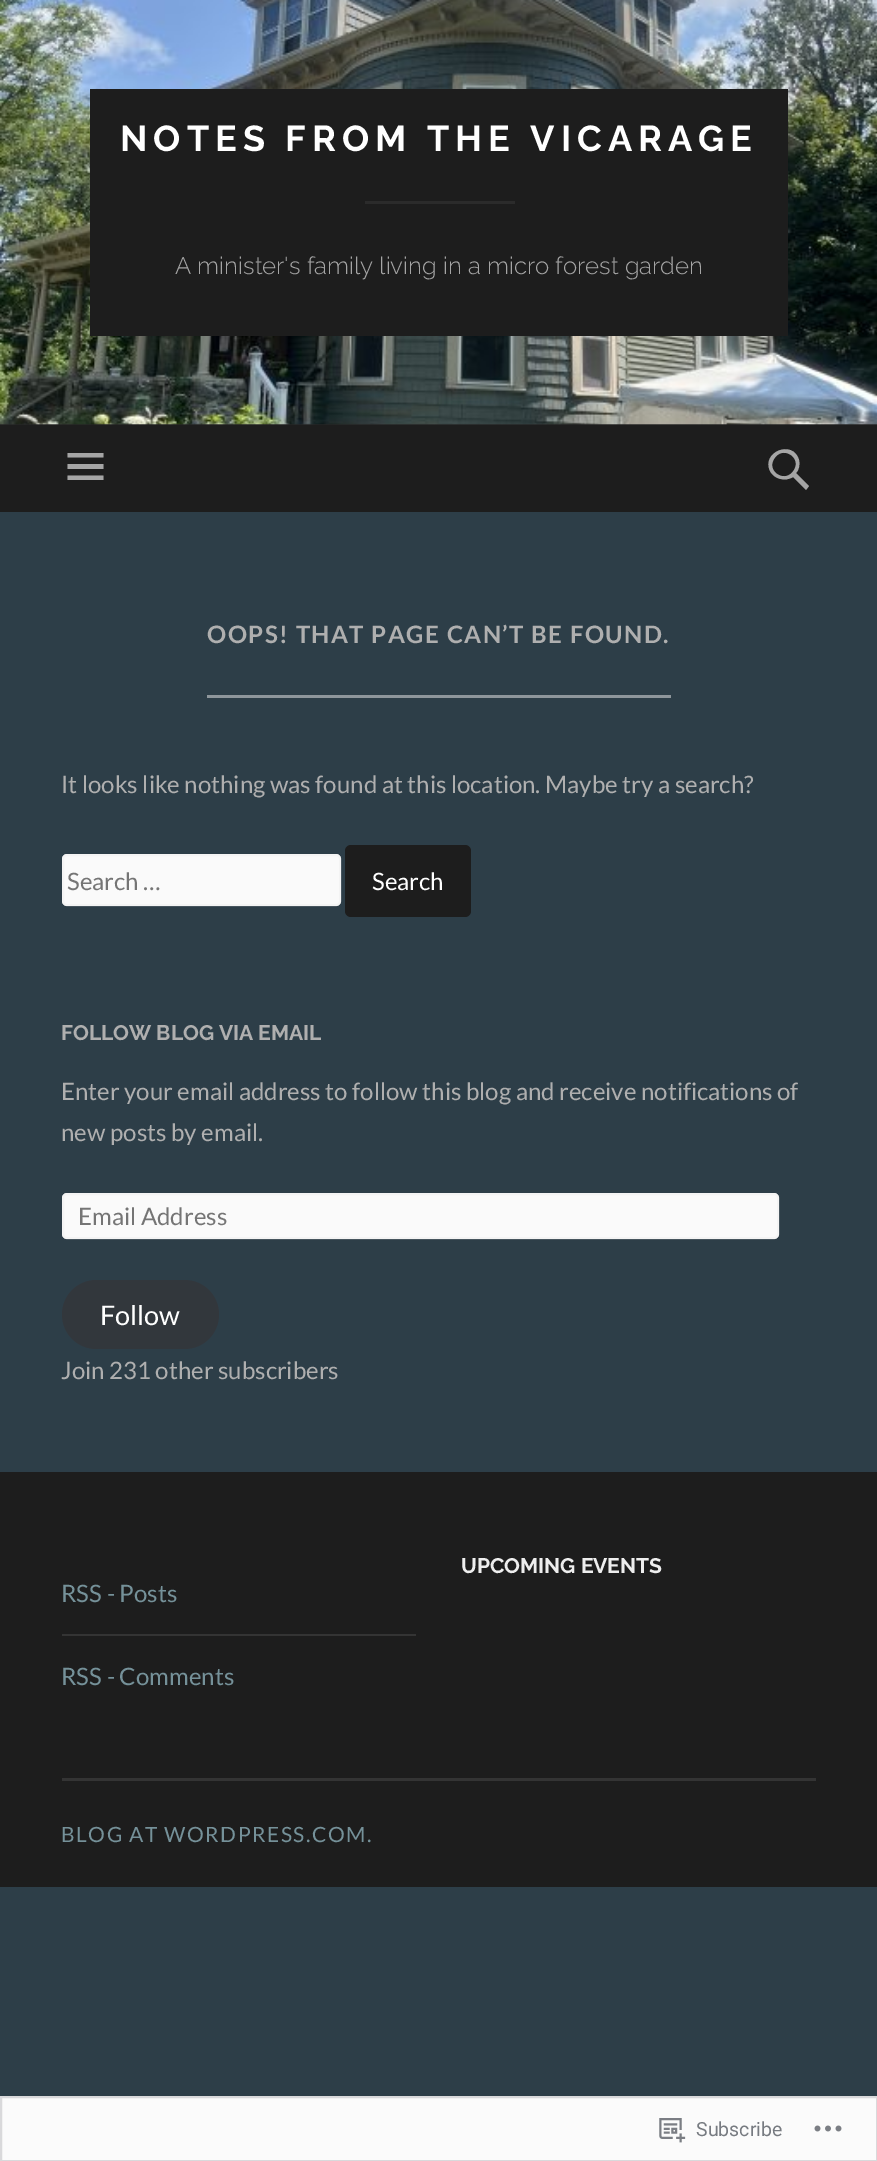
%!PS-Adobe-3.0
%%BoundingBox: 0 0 877 2161
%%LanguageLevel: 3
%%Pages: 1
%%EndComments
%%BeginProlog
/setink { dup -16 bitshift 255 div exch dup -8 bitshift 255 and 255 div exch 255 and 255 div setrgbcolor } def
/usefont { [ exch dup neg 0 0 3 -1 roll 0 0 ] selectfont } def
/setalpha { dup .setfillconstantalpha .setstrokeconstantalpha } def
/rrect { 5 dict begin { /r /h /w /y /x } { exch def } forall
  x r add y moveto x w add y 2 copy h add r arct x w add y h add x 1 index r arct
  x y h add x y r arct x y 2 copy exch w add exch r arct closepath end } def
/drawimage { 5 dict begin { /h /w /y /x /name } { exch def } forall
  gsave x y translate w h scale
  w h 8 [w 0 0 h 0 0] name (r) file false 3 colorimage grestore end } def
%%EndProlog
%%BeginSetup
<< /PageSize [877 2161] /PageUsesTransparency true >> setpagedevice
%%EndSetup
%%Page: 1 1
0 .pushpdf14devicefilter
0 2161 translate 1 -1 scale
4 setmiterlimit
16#2D3E48 setink
0 0 877 2161 rectfill
16#262626 setink
0 424 877 1 rectfill
(img1.raw) 0 0 877 425 drawimage
16#1D1D1D setink
90 89 698 247 rectfill
/Raleway-Bold 36 usefont
16#FFFFFF setink
120 151 moveto 6 0 (NOTES FROM THE VICARAGE) ashow
16#2B2B2B setink
365 201 150 3 rectfill
/Raleway-Light 24 usefont
16#A5A5A5 setink
175 274 moveto (A minister's family living in a micro forest garden) show
16#1D1D1D setink
0 425 877 87 rectfill
16#A5A5A5 setink
67.5 480 moveto 67.5 475.5 lineto 103.5 475.5 lineto 103.5 480 lineto closepath 67.5 453 moveto 103.5 453 lineto 103.5 457.5 lineto 67.5 457.5 lineto closepath 67.5 469 moveto 67.5 464 lineto 103.5 464 lineto 103.5 469 lineto closepath fill
809 486 moveto 806 490 lineto 793 477 lineto 785 482 774 479 770 471 curveto 761 452 793 439 799 460 curveto 800 465 799 470 796 473 curveto closepath 774 459 moveto 766 472 786 484 794 470 curveto 802 457 782 445 774 459 curveto closepath fill
16#8E969B setink
207 695 464 3 rectfill
/Lato-Bold 24 usefont
16#AFAFAF setink
207 643 moveto 1.5 0 (OOPS! THAT PAGE CAN’T BE FOUND.) ashow
/Lato-Regular 24 usefont
61 793 moveto (It looks like nothing was found at this location. Maybe try a search?) show
16#FAFAFA setink
62 854 279 52 5 rrect fill
0.5 setalpha
16#EEEEEE setink
2 setlinewidth
63 855 277 50 4 rrect stroke
1 setalpha
16#757575 setink
67 890 moveto (Search …) show
16#1D1D1D setink
345 845 126 72 6 rrect fill
16#FFFFFF setink
372 890 moveto (Search) show
/Raleway-Bold 21 usefont
16#AFAFAF setink
61 1040 moveto (FOLLOW BLOG VIA EMAIL) show
/Lato-Regular 24 usefont
61 1100 moveto (Enter your email address to follow this blog and receive notifications of) show
61 1141 moveto (new posts by email.) show
16#FAFAFA setink
62 1193 717 46 5 rrect fill
0.5 setalpha
16#EEEEEE setink
63 1194 715 44 4 rrect stroke
1 setalpha
16#757575 setink
78 1225 moveto (Email Address) show
16#32373C setink
62 1280 157 69 34.5 rrect fill
/Lato-Regular 27 usefont
16#FFFFFF setink
100 1325 moveto (Follow) show
/Lato-Regular 24 usefont
16#AFAFAF setink
61 1379 moveto (Join 231 other subscribers) show
16#1D1D1D setink
0 1472 877 415 rectfill
/Raleway-Bold 21 usefont
16#EEEEEE setink
461 1573 moveto (UPCOMING EVENTS) show
/Lato-Regular 24 usefont
16#759199 setink
61 1602 moveto (RSS - Posts) show
16#343434 setink
62 1634 354 2 rectfill
16#759199 setink
61 1685 moveto (RSS - Comments) show
16#343434 setink
62 1778 754 3 rectfill
/Lato-Regular 21 usefont
16#759199 setink
61 1842 moveto 1.5 0 (BLOG AT WORDPRESS.COM.) ashow
16#FBFBFB setink
1 2097 moveto 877 2097 lineto 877 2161 lineto 1 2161 lineto closepath gsave fill grestore
16#D9D9DB setink
stroke
(img2.raw) 659 2118 27 25 drawimage
/Roboto-Regular 19.5 usefont
16#777B81 setink
696 2136 moveto (Subscribe) show
(img3.raw) 814 2125 28 7 drawimage
.poppdf14devicefilter showpage
%%EOF
